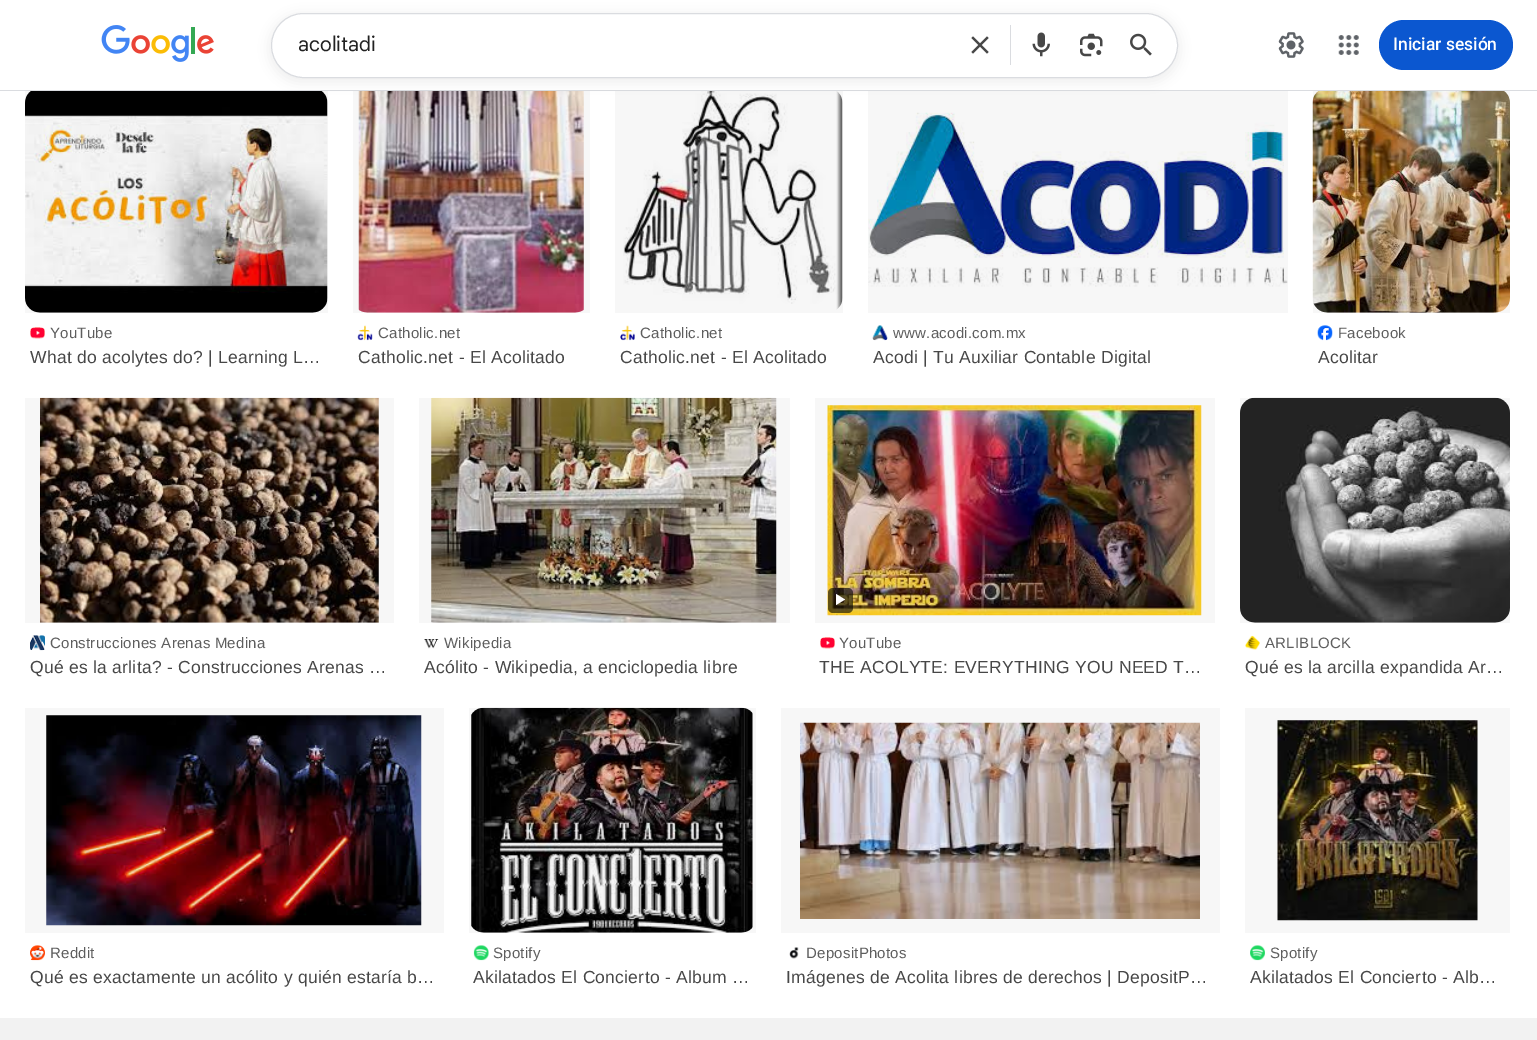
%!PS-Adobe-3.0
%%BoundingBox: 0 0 1537 1040
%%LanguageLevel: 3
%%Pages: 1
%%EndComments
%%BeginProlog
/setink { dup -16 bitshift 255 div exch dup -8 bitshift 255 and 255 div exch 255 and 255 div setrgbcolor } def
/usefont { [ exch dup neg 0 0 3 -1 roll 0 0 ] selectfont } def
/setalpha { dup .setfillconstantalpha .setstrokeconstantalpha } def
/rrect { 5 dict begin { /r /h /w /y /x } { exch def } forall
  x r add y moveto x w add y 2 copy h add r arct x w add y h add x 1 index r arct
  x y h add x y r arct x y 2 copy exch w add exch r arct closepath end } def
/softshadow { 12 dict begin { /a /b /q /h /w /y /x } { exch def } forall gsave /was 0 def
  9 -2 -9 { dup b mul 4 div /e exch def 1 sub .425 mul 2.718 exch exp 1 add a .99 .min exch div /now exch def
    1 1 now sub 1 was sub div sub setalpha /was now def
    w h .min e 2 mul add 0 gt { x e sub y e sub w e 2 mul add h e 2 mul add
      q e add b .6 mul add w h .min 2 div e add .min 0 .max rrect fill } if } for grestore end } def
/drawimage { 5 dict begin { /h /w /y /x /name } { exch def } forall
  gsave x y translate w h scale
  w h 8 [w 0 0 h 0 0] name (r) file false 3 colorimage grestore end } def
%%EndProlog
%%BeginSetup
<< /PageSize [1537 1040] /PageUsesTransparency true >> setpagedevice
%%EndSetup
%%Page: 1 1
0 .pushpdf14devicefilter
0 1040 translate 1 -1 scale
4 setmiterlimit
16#FFFFFF setink
0 0 1537 1040 rectfill
16#DADCE0 setink
0 90 1537 1 rectfill
(img1.raw) 101 25 113 37 drawimage
(img8.raw) 25 91 303 222 drawimage
0.03 setalpha
16#000000 setink
25 91 303 222 rectfill
1 setalpha
(img10.raw) 358 91 226 222 drawimage
0.03 setalpha
353 91 237 222 rectfill
1 setalpha
(img12.raw) 623 91 220 219 drawimage
0.03 setalpha
615 91 228 222 rectfill
1 setalpha
(img14.raw) 868 112 420 175 drawimage
0.03 setalpha
868 91 420 222 rectfill
1 setalpha
16#1F1F1F setink
271 16 907 65 32.5 6 0.08 softshadow
16#FFFFFF setink
271.5 13.5 906 64 32 rrect gsave fill grestore
16#DADCE0 setink
stroke
/GoogleSans-Regular 20 usefont
16#212121 setink
298 51 moveto (acolitadi) show
(img2.raw) 971 36 18 18 drawimage
16#DADCE0 setink
1010 25 1 40 rectfill
(img3.raw) 1032 32 18 25 drawimage
(img4.raw) 1080 33 23 24 drawimage
(img5.raw) 1130 33 22 23 drawimage
(img6.raw) 1278 32 26 26 drawimage
(img7.raw) 1338 35 21 20 drawimage
16#0B57D0 setink
1379 20 134 50 25 rrect fill
/Roboto-Medium 17.5 usefont
16#FFFFFF setink
1393 50 moveto (Iniciar sesión) show
(img9.raw) 30 327 15 12 drawimage
/LiberationSans-Regular 15 usefont
16#5E5E5E setink
50 338 moveto 0.25 0 (YouTube) ashow
/LiberationSans-Regular 17.5 usefont
16#474747 setink
30 363 moveto 0.25 0 (What do acolytes do? | Learning L…) ashow
(img11.raw) 357 325 16 16 drawimage
/LiberationSans-Regular 15 usefont
16#5E5E5E setink
378 338 moveto 0.25 0 (Catholic.net) ashow
/LiberationSans-Regular 17.5 usefont
16#474747 setink
358 363 moveto 0.25 0 (Catholic.net - El Acolitado) ashow
(img13.raw) 620 325 15 16 drawimage
/LiberationSans-Regular 15 usefont
16#5E5E5E setink
640 338 moveto 0.25 0 (Catholic.net) ashow
/LiberationSans-Regular 17.5 usefont
16#474747 setink
620 363 moveto 0.25 0 (Catholic.net - El Acolitado) ashow
(img15.raw) 872 325 16 16 drawimage
/LiberationSans-Regular 15 usefont
16#5E5E5E setink
893 338 moveto 0.25 0 (www.acodi.com.mx) ashow
/LiberationSans-Regular 17.5 usefont
16#474747 setink
873 363 moveto 0.25 0 (Acodi | Tu Auxiliar Contable Digital) ashow
(img16.raw) 1312 91 198 222 drawimage
0.03 setalpha
16#000000 setink
1313 91 197 222 rectfill
1 setalpha
(img17.raw) 1317 325 16 16 drawimage
/LiberationSans-Regular 15 usefont
16#5E5E5E setink
1338 338 moveto 0.25 0 (Facebook) ashow
/LiberationSans-Regular 17.5 usefont
16#474747 setink
1318 363 moveto 0.25 0 (Acolitar) ashow
(img18.raw) 40 397 339 226 drawimage
0.03 setalpha
16#000000 setink
25 398 369 225 rectfill
1 setalpha
(img19.raw) 30 635 15 16 drawimage
/LiberationSans-Regular 15 usefont
16#5E5E5E setink
50 648 moveto 0.25 0 (Construcciones Arenas Medina) ashow
/LiberationSans-Regular 17.5 usefont
16#474747 setink
30 673 moveto 0.25 0 (Qué es la arlita? - Construcciones Arenas …) ashow
(img20.raw) 431 397 346 226 drawimage
0.03 setalpha
16#000000 setink
419 398 371 225 rectfill
1 setalpha
(img21.raw) 424 639 15 10 drawimage
/LiberationSans-Regular 15 usefont
16#5E5E5E setink
444 648 moveto 0.25 0 (Wikipedia) ashow
/LiberationSans-Regular 17.5 usefont
16#474747 setink
424 673 moveto 0.25 0 (Acólito - Wikipedia, a enciclopedia libre) ashow
(img22.raw) 827 405 375 211 drawimage
0.03 setalpha
16#000000 setink
815 398 400 225 rectfill
0.6 setalpha
828 588 25 25 5 rrect fill
1 setalpha
16#FFFFFF setink
836 594 moveto 836 605 lineto 845 599.5 lineto closepath fill
(img23.raw) 820 637 15 12 drawimage
/LiberationSans-Regular 15 usefont
16#5E5E5E setink
839 648 moveto 0.25 0 (YouTube) ashow
/LiberationSans-Regular 17.5 usefont
16#474747 setink
819 673 moveto 0.25 0 (THE ACOLYTE: EVERYTHING YOU NEED T…) ashow
(img24.raw) 1240 397 270 226 drawimage
0.03 setalpha
16#000000 setink
1240 398 270 225 rectfill
1 setalpha
(img25.raw) 1245 635 15 15 drawimage
/LiberationSans-Regular 15 usefont
16#5E5E5E setink
1265 648 moveto 0.25 0 (ARLIBLOCK) ashow
/LiberationSans-Regular 17.5 usefont
16#474747 setink
1245 673 moveto 0.25 0 (Qué es la arcilla expandida Ar…) ashow
(img26.raw) 46 715 376 211 drawimage
0.03 setalpha
16#000000 setink
25 708 419 225 rectfill
1 setalpha
(img27.raw) 30 945 15 16 drawimage
/LiberationSans-Regular 15 usefont
16#5E5E5E setink
50 958 moveto 0.25 0 (Reddit) ashow
/LiberationSans-Regular 17.5 usefont
16#474747 setink
30 983 moveto 0.25 0 (Qué es exactamente un acólito y quién estaría b…) ashow
(img28.raw) 471 707 282 226 drawimage
0.03 setalpha
16#000000 setink
469 708 287 225 rectfill
1 setalpha
(img29.raw) 473 945 16 16 drawimage
/LiberationSans-Regular 15 usefont
16#5E5E5E setink
493 958 moveto 0.25 0 (Spotify) ashow
/LiberationSans-Regular 17.5 usefont
16#474747 setink
473 983 moveto 0.25 0 (Akilatados El Concierto - Album …) ashow
(img30.raw) 800 722 400 197 drawimage
0.03 setalpha
16#000000 setink
781 708 439 225 rectfill
1 setalpha
(img31.raw) 789 947 10 12 drawimage
/LiberationSans-Regular 15 usefont
16#5E5E5E setink
806 958 moveto 0.25 0 (DepositPhotos) ashow
/LiberationSans-Regular 17.5 usefont
16#474747 setink
786 983 moveto 0.25 0 (Imágenes de Acolita libres de derechos | DepositP…) ashow
(img32.raw) 1277 720 201 201 drawimage
0.03 setalpha
16#000000 setink
1245 708 265 225 rectfill
1 setalpha
(img33.raw) 1250 945 15 16 drawimage
/LiberationSans-Regular 15 usefont
16#5E5E5E setink
1270 958 moveto 0.25 0 (Spotify) ashow
/LiberationSans-Regular 17.5 usefont
16#474747 setink
1250 983 moveto 0.25 0 (Akilatados El Concierto - Alb…) ashow
16#F2F2F2 setink
0 1018 1537 22 rectfill
.poppdf14devicefilter showpage
%%EOF
